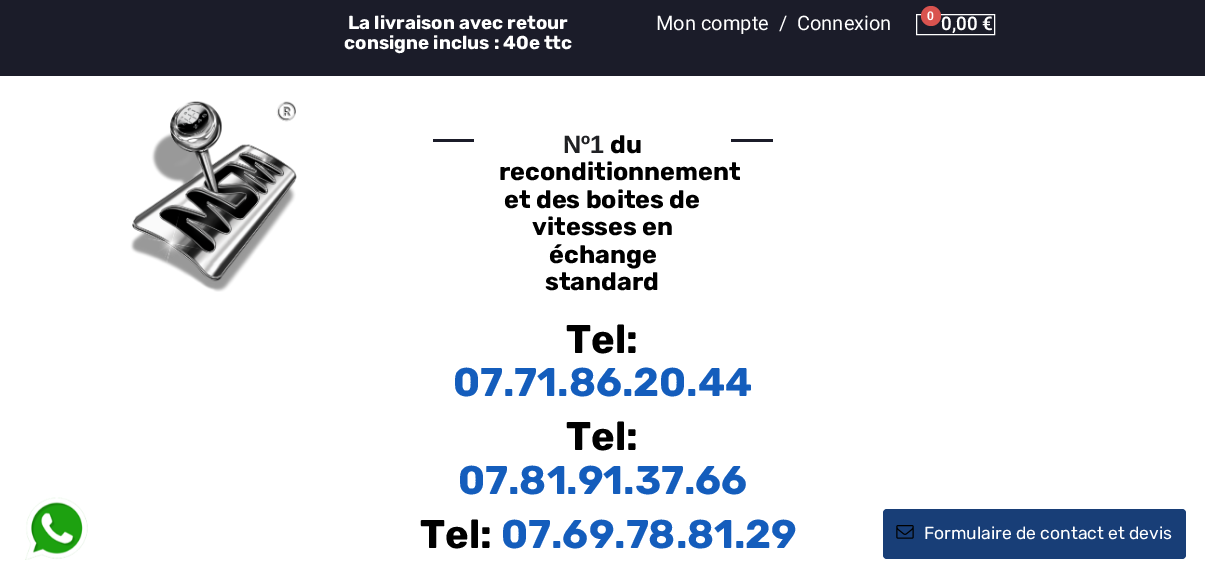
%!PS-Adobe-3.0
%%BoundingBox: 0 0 1205 583
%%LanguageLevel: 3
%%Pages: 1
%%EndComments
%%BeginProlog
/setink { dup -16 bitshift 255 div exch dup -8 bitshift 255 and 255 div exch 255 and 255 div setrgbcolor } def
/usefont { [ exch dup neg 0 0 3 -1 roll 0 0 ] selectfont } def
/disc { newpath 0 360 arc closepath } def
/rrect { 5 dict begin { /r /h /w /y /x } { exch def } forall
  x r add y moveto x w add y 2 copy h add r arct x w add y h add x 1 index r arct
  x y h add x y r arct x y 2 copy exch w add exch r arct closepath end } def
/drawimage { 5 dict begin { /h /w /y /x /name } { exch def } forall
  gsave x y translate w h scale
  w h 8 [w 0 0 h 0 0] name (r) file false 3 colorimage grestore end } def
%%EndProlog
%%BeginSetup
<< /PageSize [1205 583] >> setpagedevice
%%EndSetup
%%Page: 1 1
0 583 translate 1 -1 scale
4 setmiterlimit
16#FFFFFF setink
0 0 1205 583 rectfill
16#1B1C29 setink
0 0 1205 76 rectfill
/Rubik-Bold 18.75 usefont
16#FFFFFF setink
348 29 moveto (La livraison avec retour) show
344 49 moveto (consigne inclus : 40e ttc) show
/Roboto-Regular 20 usefont
656 30 moveto (Mon compte  /) show
797 30 moveto (Connexion) show
916.5 14.5 78 20 rectstroke
16#D9534F setink
931 16 10 disc fill
/Roboto-SemiBold 12 usefont
16#FFFFFF setink
927 20 moveto (0) show
/Roboto-SemiBold 18.75 usefont
941 30 moveto (0,00 €) show
(img1.raw) 130 101 167 191 drawimage
16#1B1C29 setink
433 139 41 3 rectfill
/LiberationSans-Bold 25 usefont
16#202124 setink
563 153 moveto (Nº1) show
/Rubik-Bold 25 usefont
16#000000 setink
[
    [(du) 610 153]
    [(reconditionnement) 499 180]
    [(et des boites de) 504 208]
    [(vitesses en) 532 235]
    [(échange) 549 263]
    [(standard) 545 290]
] { aload pop moveto show } forall
16#1B1C29 setink
731 139 42 3 rectfill
/Rubik-Bold 40 usefont
16#000000 setink
566 353 moveto (Tel:) show
16#145DBC setink
453 396 moveto (07.71.86.20.44) show
16#000000 setink
566 450 moveto (Tel:) show
16#145DBC setink
458 494 moveto (07.81.91.37.66) show
16#000000 setink
420 548 moveto (Tel:) show
16#145DBC setink
501 548 moveto (07.69.78.81.29) show
(img2.raw) 25 497 63 63 drawimage
16#183E77 setink
883 509 303 50 4 rrect fill
(img3.raw) 896 525 18 14 drawimage
/Rubik-Regular 17.5 usefont
16#FFFFFF setink
924 539 moveto (Formulaire de contact et devis) show
showpage
%%EOF
